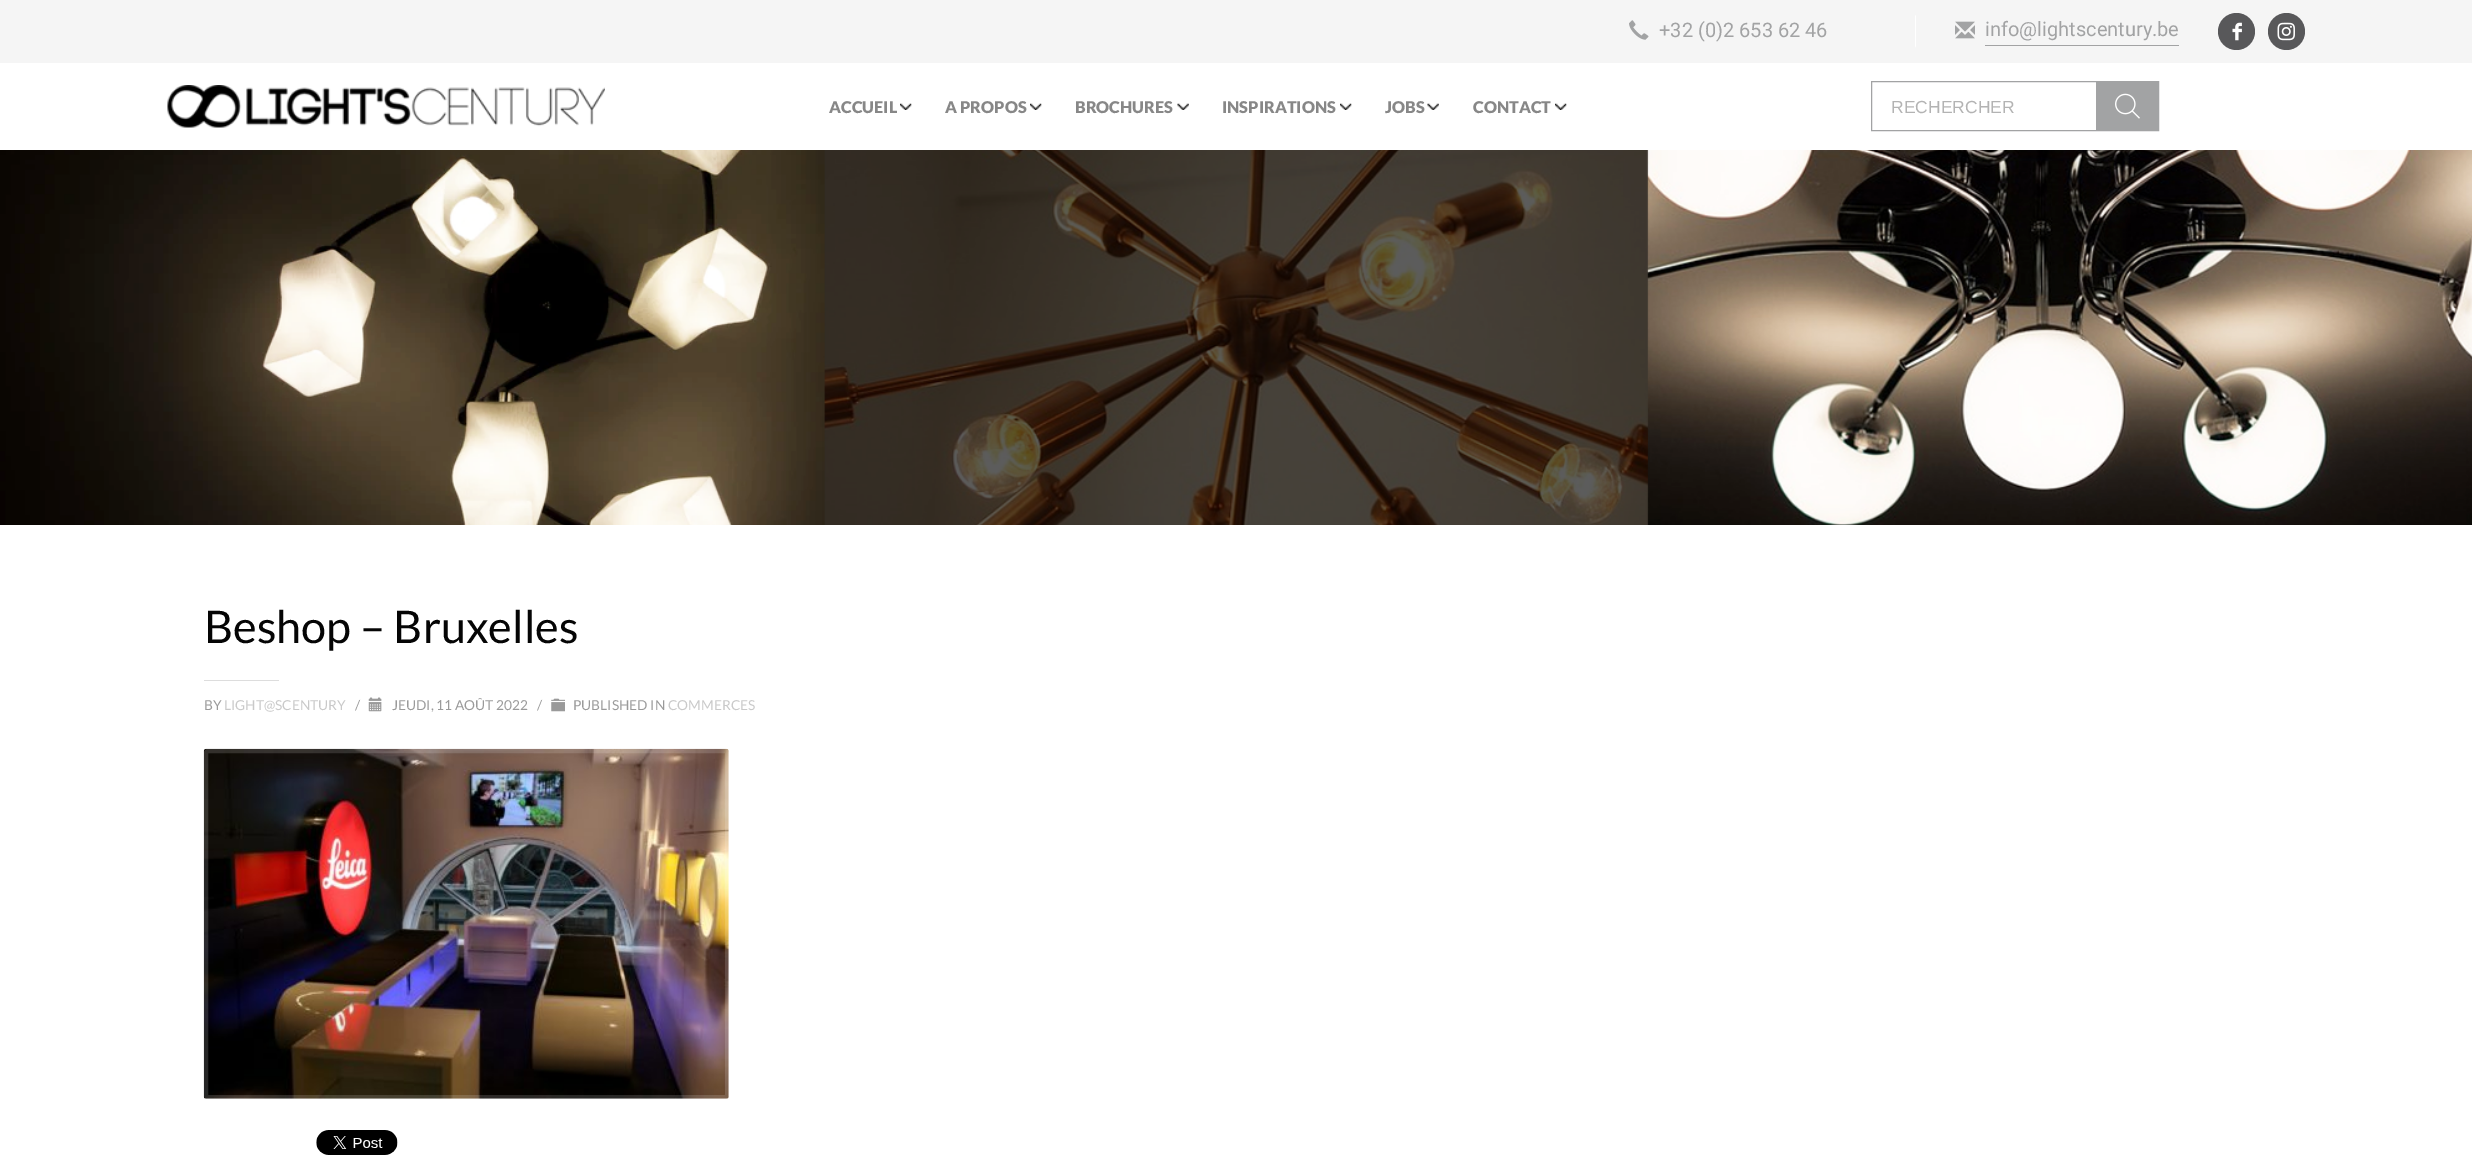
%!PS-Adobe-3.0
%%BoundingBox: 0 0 2472 1169
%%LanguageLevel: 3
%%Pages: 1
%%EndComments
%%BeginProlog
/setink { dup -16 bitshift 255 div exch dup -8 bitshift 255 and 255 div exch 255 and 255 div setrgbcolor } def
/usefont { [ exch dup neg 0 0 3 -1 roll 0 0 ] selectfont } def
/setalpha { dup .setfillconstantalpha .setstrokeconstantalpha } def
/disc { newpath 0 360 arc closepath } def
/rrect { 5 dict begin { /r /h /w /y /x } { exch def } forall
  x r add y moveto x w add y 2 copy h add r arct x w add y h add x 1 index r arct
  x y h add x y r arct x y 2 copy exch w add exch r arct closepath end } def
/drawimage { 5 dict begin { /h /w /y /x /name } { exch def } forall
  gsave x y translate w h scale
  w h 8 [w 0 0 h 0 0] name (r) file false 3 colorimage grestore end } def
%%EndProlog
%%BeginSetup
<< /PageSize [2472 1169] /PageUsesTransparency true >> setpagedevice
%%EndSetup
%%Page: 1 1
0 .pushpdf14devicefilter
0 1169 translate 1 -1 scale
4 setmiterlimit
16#FFFFFF setink
0 0 2472 1169 rectfill
16#F5F5F5 setink
0 0 2472 63 rectfill
16#FFFFFF setink
1916 15 moveto 1916 47.5 lineto 1915 46 lineto 1915 16 lineto closepath fill
(img1.raw) 1629 20 20 20 drawimage
/Roboto-Regular 20 usefont
16#A2A3A4 setink
1659 37 moveto (+32 \(0\)2 653 62 46) show
(img2.raw) 1955 21 20 18 drawimage
1985 45 194 1 rectfill
1985 36 moveto (info@lightscentury.be) show
16#58585A setink
2236.5 31.5 18.5 disc fill
(img3.raw) 2232 22 10 19 drawimage
2286.5 31.5 18.5 disc fill
(img4.raw) 2277 22 18 19 drawimage
(img5.raw) 167 85 438 43 drawimage
(img6.raw) 900 103 12 7 drawimage
/Lato-Black 16.25 usefont
16#878787 setink
829 113 moveto (ACCUEIL) show
(img6.raw) 1030 103 12 7 drawimage
945 113 moveto (A PROPOS) show
(img7.raw) 1177 103 12 7 drawimage
1075 113 moveto (BROCHURES) show
(img6.raw) 1340 103 12 7 drawimage
1222 113 moveto (INSPIRATIONS) show
(img7.raw) 1427 103 12 7 drawimage
1385 113 moveto (JOBS) show
(img8.raw) 1555 103 12 7 drawimage
1473 113 moveto (CONTACT) show
16#A2A3A4 setink
1871.5 81.5 287 49 rectstroke
/LiberationSans-Regular 17.5 usefont
16#B3B3B3 setink
1891 113 moveto (RECHERCHER) show
16#A2A3A4 setink
2096 81 moveto 2156.5 81 lineto 2158 81 2159 82 2159 83.5 curveto 2159 128.5 lineto 2159 130 2158 131 2156.5 131 curveto 2096 131 lineto closepath fill
(img9.raw) 2115 93 25 26 drawimage
(img10.raw) 0 150 2472 375 drawimage
/Lato-Regular 45 usefont
16#050505 setink
204 643 moveto (Beshop – Bruxelles) show
16#DDDDDD setink
204 680 75 1 rectfill
/Lato-Regular 13.75 usefont
16#9A9A9A setink
204 710 moveto (BY) show
16#C9C9C9 setink
224 710 moveto (LIGHT@SCENTURY) show
16#9A9A9A setink
355 710 moveto (/) show
(img11.raw) 368 697 14 15 drawimage
392 710 moveto (JEUDI, 11 AOÛT 2022) show
537 710 moveto (/) show
(img12.raw) 551 698 14 14 drawimage
573 710 moveto (PUBLISHED IN) show
16#C9C9C9 setink
668 710 moveto (COMMERCES) show
(img13.raw) 203 748 526 351 drawimage
0.15 setalpha
16#FFFFFF setink
4 setlinewidth
206 751 521 346 2 rrect stroke
1 setalpha
(img14.raw) 316 1130 82 25 drawimage
.poppdf14devicefilter showpage
%%EOF
